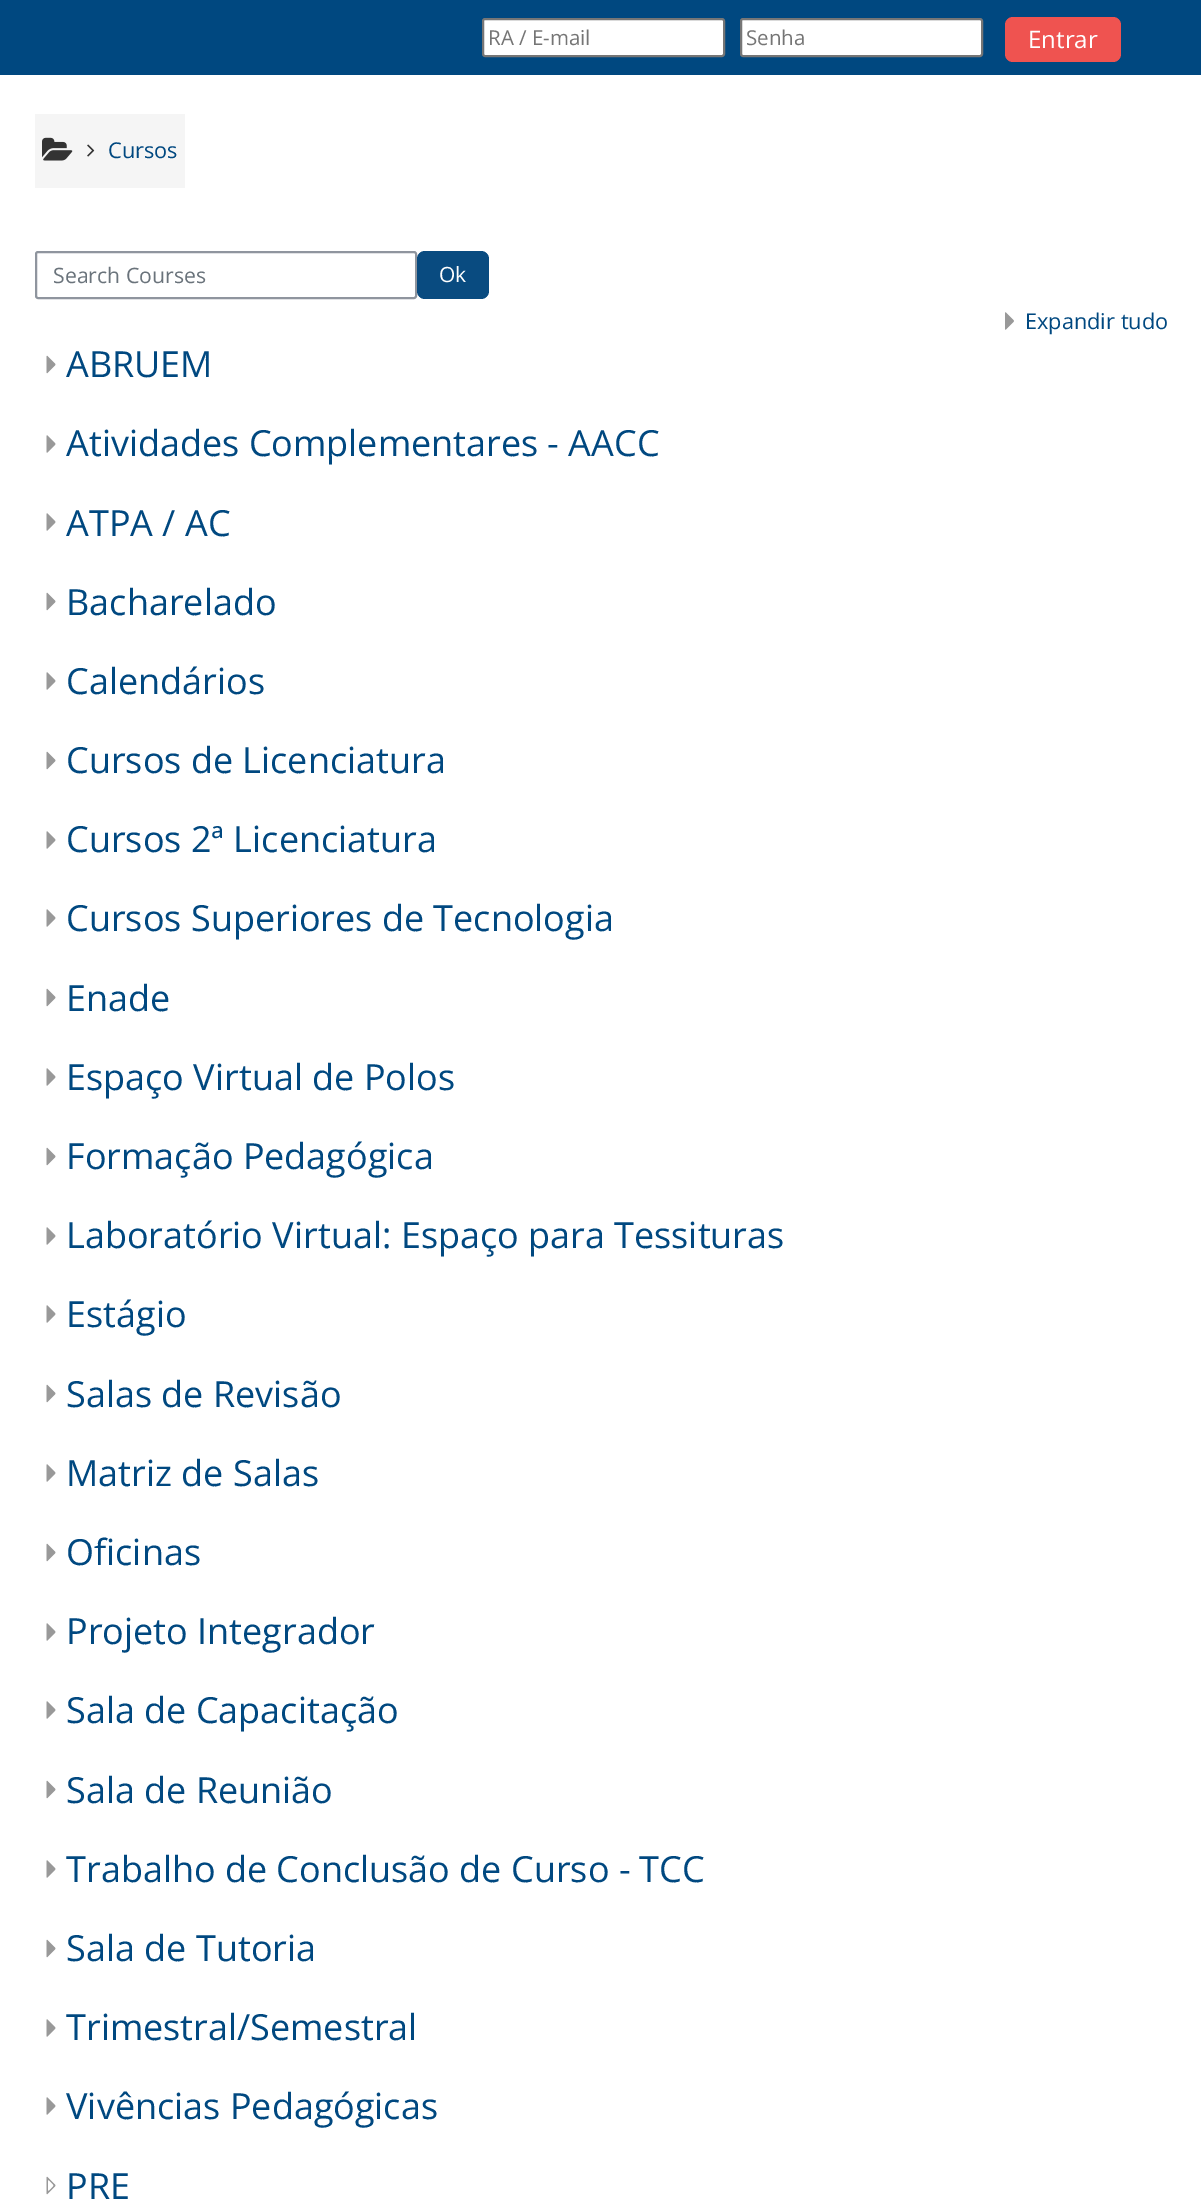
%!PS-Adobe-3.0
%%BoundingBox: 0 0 1201 2212
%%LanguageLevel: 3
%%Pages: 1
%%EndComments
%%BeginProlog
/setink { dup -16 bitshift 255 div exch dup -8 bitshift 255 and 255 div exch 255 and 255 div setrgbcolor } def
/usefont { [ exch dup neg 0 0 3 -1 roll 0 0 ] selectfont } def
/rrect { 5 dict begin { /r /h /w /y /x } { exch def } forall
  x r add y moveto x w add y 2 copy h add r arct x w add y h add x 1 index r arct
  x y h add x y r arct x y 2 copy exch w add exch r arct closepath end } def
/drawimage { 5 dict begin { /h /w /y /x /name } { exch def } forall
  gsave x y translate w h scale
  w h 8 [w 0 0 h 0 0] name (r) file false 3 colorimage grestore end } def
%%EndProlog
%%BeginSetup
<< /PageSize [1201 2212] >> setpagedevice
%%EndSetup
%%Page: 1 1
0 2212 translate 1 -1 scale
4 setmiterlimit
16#FFFFFF setink
0 0 1201 2212 rectfill
16#004880 setink
0 0 1201 75 rectfill
16#FFFFFF setink
483 19 241 37 2 rrect gsave fill grestore
16#767676 setink
2 setlinewidth
stroke
/OpenSans-Regular 20.5 usefont
16#757575 setink
488 45 moveto (RA / E-mail) show
16#FFFFFF setink
741 19 241 37 2 rrect gsave fill grestore
16#767676 setink
stroke
16#757575 setink
746 45 moveto (Senha) show
16#EF5350 setink
1005 17 116 45 8 rrect fill
/OpenSans-Regular 24 usefont
16#FFFFFF setink
1028 48 moveto (Entrar) show
16#F5F5F5 setink
35 114 150 74 rectfill
(img1.raw) 42 137 31 24 drawimage
(img2.raw) 87 144 8 13 drawimage
/OpenSans-Regular 21.75 usefont
16#004880 setink
108 158 moveto (Cursos) show
16#8F959E setink
36 252 380 46 2 rrect stroke
/OpenSans-Regular 21.25 usefont
16#6A737B setink
53 283 moveto (Search Courses) show
16#094B80 setink
417 251 72 48 8 rrect fill
/OpenSans-Regular 21 usefont
16#FFFFFF setink
439 282 moveto (Ok) show
(img3.raw) 1005 312 9 18 drawimage
/OpenSans-Regular 21.75 usefont
16#004880 setink
1025 329 moveto (Expandir tudo) show
(img4.raw) 46 355 10 19 drawimage
/OpenSans-Regular 36 usefont
66 377 moveto (ABRUEM) show
(img5.raw) 46 435 10 18 drawimage
66 456 moveto (Atividades Complementares - AACC) show
(img5.raw) 46 513 10 18 drawimage
66 536 moveto (ATPA / AC) show
(img4.raw) 46 592 10 19 drawimage
66 615 moveto (Bacharelado) show
(img5.raw) 46 672 10 18 drawimage
66 694 moveto (Calendários) show
(img6.raw) 46 751 10 19 drawimage
66 773 moveto (Cursos de Licenciatura) show
(img5.raw) 46 831 10 18 drawimage
66 852 moveto (Cursos 2ª Licenciatura) show
(img5.raw) 46 909 10 18 drawimage
66 931 moveto (Cursos Superiores de Tecnologia) show
(img4.raw) 46 988 10 19 drawimage
66 1011 moveto (Enade) show
(img5.raw) 46 1068 10 18 drawimage
66 1090 moveto (Espaço Virtual de Polos) show
(img4.raw) 46 1147 10 19 drawimage
66 1169 moveto (Formação Pedagógica) show
(img5.raw) 46 1227 10 18 drawimage
66 1248 moveto (Laboratório Virtual: Espaço para Tessituras) show
(img5.raw) 46 1305 10 18 drawimage
66 1327 moveto (Estágio) show
(img4.raw) 46 1384 10 19 drawimage
66 1407 moveto (Salas de Revisão) show
(img5.raw) 46 1464 10 18 drawimage
66 1486 moveto (Matriz de Salas) show
(img4.raw) 46 1543 10 19 drawimage
66 1565 moveto (Oficinas) show
(img5.raw) 46 1623 10 18 drawimage
66 1644 moveto (Projeto Integrador) show
(img5.raw) 46 1701 10 18 drawimage
66 1723 moveto (Sala de Capacitação) show
(img4.raw) 46 1780 10 19 drawimage
66 1803 moveto (Sala de Reunião) show
(img5.raw) 46 1860 10 18 drawimage
66 1882 moveto (Trabalho de Conclusão de Curso - TCC) show
(img4.raw) 46 1939 10 19 drawimage
66 1961 moveto (Sala de Tutoria) show
(img7.raw) 46 2019 10 18 drawimage
66 2040 moveto (Trimestral/Semestral) show
(img5.raw) 46 2097 10 18 drawimage
66 2119 moveto (Vivências Pedagógicas) show
(img8.raw) 46 2176 10 19 drawimage
66 2199 moveto (PRE) show
showpage
%%EOF
